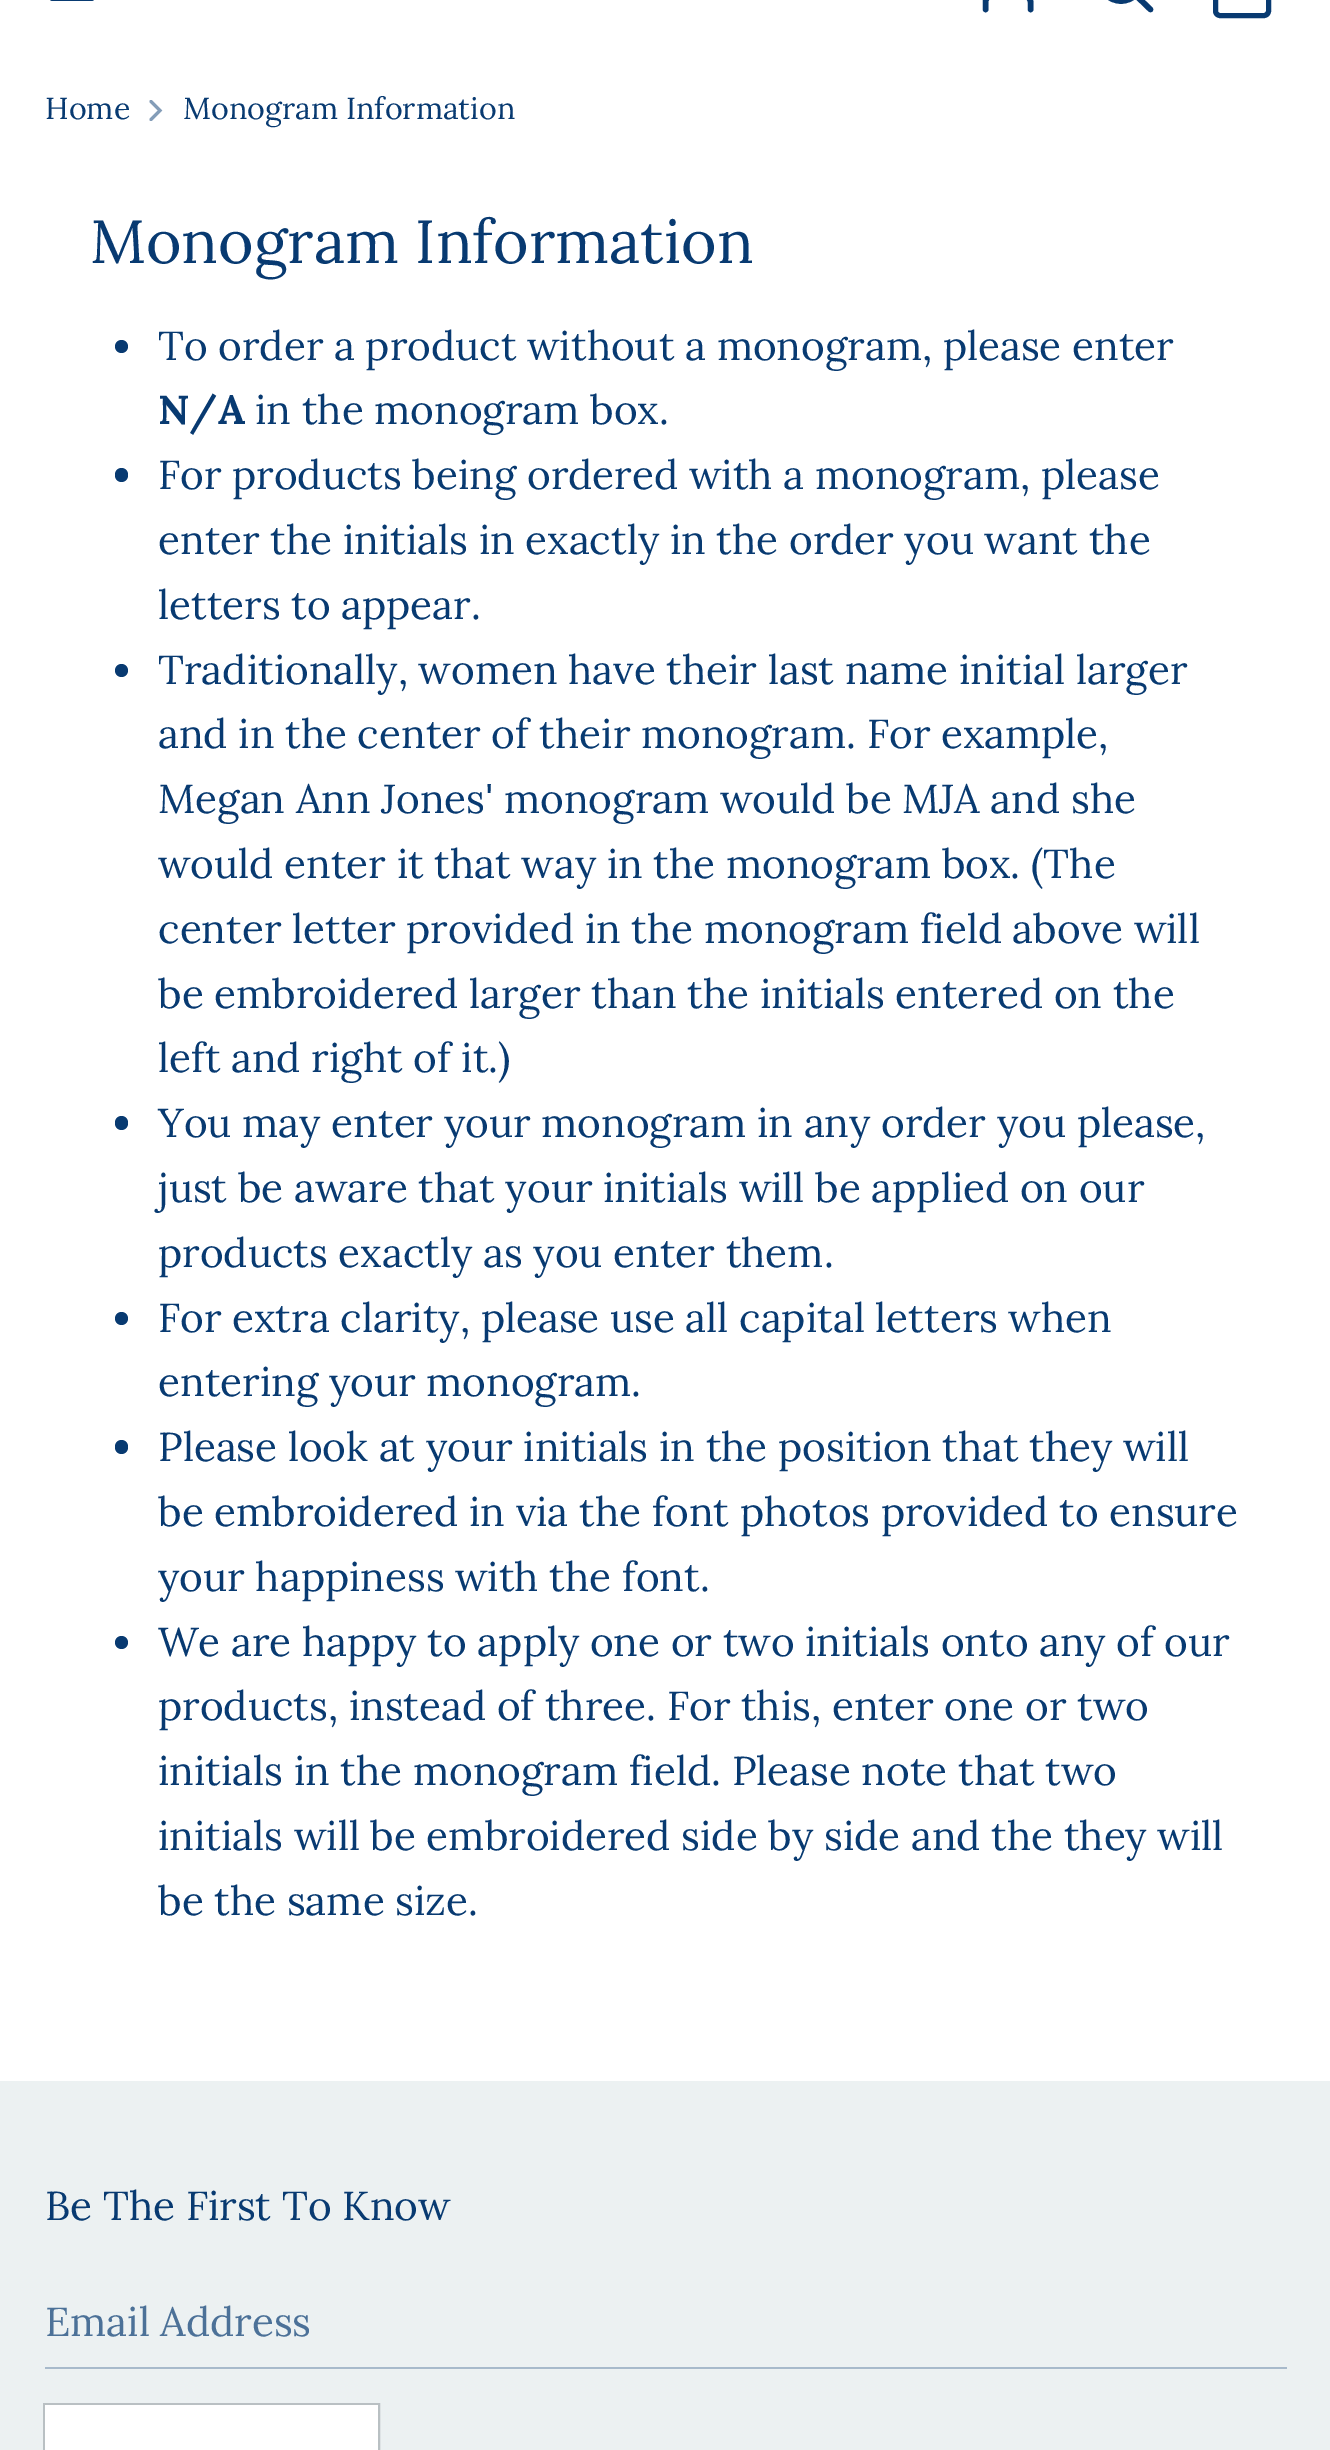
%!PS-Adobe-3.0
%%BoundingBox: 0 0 1330 2450
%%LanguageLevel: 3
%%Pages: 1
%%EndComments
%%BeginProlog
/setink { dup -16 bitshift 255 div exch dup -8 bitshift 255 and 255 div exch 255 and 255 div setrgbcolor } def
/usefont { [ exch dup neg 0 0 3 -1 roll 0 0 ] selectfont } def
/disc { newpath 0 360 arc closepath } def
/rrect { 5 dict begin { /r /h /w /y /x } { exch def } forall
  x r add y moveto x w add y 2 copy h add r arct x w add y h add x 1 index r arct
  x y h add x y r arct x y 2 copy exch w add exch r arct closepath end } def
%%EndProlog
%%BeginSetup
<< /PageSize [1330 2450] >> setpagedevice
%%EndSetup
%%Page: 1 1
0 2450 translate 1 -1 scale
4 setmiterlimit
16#FFFFFF setink
0 0 1330 2450 rectfill
16#083A71 setink
4.5 setlinewidth
1 setlinecap
52 -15 moveto 92 -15 lineto 52 -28.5 moveto 92 -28.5 lineto 52 -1.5 moveto 92 -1.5 lineto stroke
5.6 setlinewidth
1030.5 9.5 moveto 1030.5 1.5 lineto 1028 -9 1016 -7.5 1008 -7.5 curveto 1000 -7.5 988 -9 985.5 1.5 curveto 985.5 9.5 lineto stroke
0 setlinecap
1121 -20 21 disc stroke
1 setlinecap
1150.5 9.5 moveto 1135.5 -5 lineto stroke
5 setlinewidth
0 setlinecap
1215.5 -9.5 53 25 4.5 rrect stroke
/Lora-Regular 30.4 usefont
45 119 moveto (Home) show
16#849DB8 setink
3 setlinewidth
1 setlinecap
151 119.5 moveto 160 110.5 lineto 151 101.5 lineto stroke
16#083A71 setink
183 119 moveto (Monogram Information) show
/Lora-Regular 60.75 usefont
90 263 moveto (Monogram Information) show
121.5 346.5 6.5 disc fill
/Lora-Regular 40.5 usefont
158 360 moveto (To order a product without a monogram, please enter) show
/Lora-Bold 40.5 usefont
158 424 moveto (N/A) show
/Lora-Regular 40.5 usefont
255 424 moveto (in the monogram box.) show
115 468 13 14 6.5 rrect fill
[
    [(For products being ordered with a monogram, please) 158 489]
    [(enter the initials in exactly in the order you want the) 158 554]
    [(letters to appear.) 158 619]
] { aload pop moveto show } forall
121.5 670.5 6.5 disc fill
[
    [(Traditionally, women have their last name initial larger) 158 684]
    [(and in the center of their monogram. For example,) 158 748]
    [(Megan Ann Jones' monogram would be MJA and she) 158 813]
    [(would enter it that way in the monogram box. \(The) 158 878]
    [(center letter provided in the monogram field above will) 158 943]
    [(be embroidered larger than the initials entered on the) 158 1008]
    [(left and right of it.\)) 158 1072]
] { aload pop moveto show } forall
115 1116 13 14 6.5 rrect fill
[
    [(You may enter your monogram in any order you please,) 158 1137]
    [(just be aware that your initials will be applied on our) 158 1202]
    [(products exactly as you enter them.) 158 1267]
] { aload pop moveto show } forall
121.5 1318.5 6.5 disc fill
158 1332 moveto (For extra clarity, please use all capital letters when) show
158 1396 moveto (entering your monogram.) show
115 1440 13 14 6.5 rrect fill
[
    [(Please look at your initials in the position that they will) 158 1461]
    [(be embroidered in via the font photos provided to ensure) 158 1526]
    [(your happiness with the font.) 158 1591]
] { aload pop moveto show } forall
121.5 1642.5 6.5 disc fill
[
    [(We are happy to apply one or two initials onto any of our) 158 1656]
    [(products, instead of three. For this, enter one or two) 158 1720]
    [(initials in the monogram field. Please note that two) 158 1785]
    [(initials will be embroidered side by side and the they will) 158 1850]
    [(be the same size.) 158 1915]
] { aload pop moveto show } forall
16#ECF1F2 setink
0 2081 1330 369 rectfill
16#083A71 setink
45 2220 moveto (Be The First To Know) show
16#A8BACB setink
45 2367 1242 2 rectfill
16#4C7198 setink
45 2336 moveto (Email Address) show
16#B9C0C3 setink
2 setlinewidth
0 setlinecap
44 2404 335 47 rectstroke
16#FFFFFF setink
45 2405 333 45 rectfill
showpage
%%EOF
